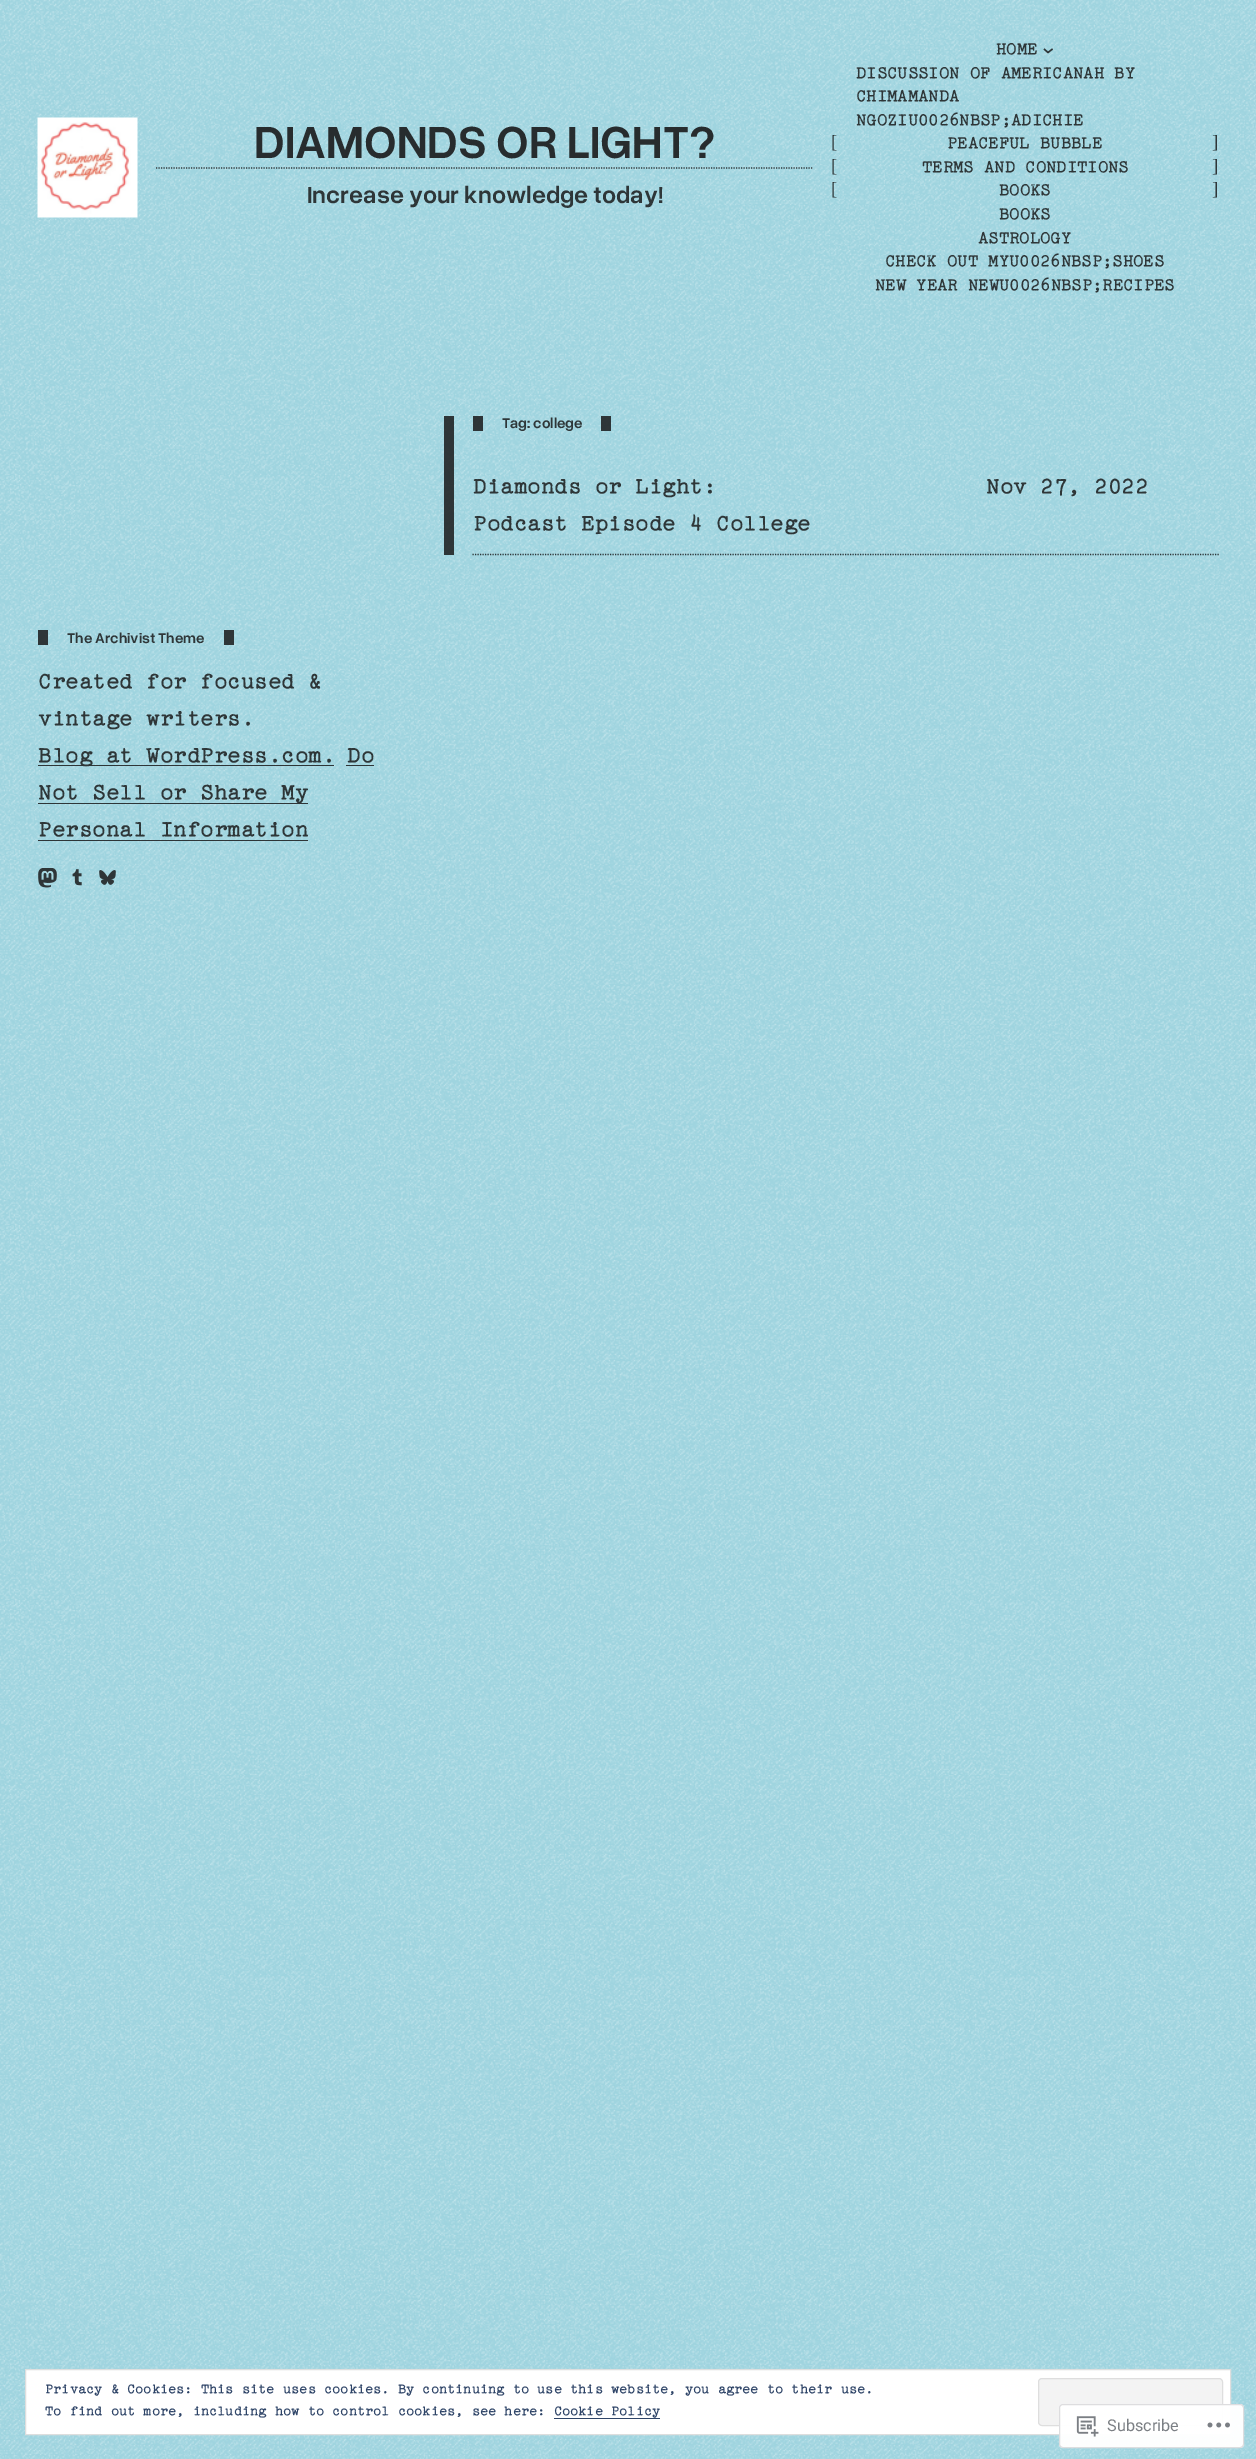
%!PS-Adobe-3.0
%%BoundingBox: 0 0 1256 2459
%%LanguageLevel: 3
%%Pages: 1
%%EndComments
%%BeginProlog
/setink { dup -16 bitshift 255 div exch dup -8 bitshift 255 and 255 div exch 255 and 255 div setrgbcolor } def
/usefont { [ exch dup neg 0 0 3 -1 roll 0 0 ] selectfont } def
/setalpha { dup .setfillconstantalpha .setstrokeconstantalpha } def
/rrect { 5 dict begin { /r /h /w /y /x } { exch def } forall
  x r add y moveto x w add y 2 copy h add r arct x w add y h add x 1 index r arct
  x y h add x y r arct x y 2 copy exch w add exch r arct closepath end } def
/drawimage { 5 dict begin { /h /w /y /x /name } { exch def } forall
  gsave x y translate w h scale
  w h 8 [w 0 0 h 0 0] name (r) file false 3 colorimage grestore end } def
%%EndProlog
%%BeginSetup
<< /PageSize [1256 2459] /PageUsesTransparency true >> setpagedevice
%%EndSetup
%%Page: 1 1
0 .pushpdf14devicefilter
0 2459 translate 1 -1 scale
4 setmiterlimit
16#9FD4DF setink
0 0 1256 2459 rectfill
(img1.raw) 0 0 1256 2459 drawimage
(img2.raw) 37 117 101 101 drawimage
0.85 setalpha
16#19191A setink
1.2 setlinewidth
[1.25 1.25] 0 setdash
156 168 moveto 812.5 168 lineto stroke
/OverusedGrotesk-SemiBold 47.75 usefont
1 setalpha
16#272C2E setink
254 158 moveto (DIAMONDS OR LIGHT?) show
/OverusedGrotesk-SemiBold 24.7 usefont
16#2E3638 setink
307 203 moveto (Increase your knowledge today!) show
/LiberationSerif-Regular 18.9 usefont
[
    [([) 831 148]
    [([) 831 172]
    [([) 831 195]
] { aload pop moveto show } forall
/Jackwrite-Regular 18.9 usefont
996 54 moveto (HOME) show
0.85 setalpha
16#19191A setink
1.4 setlinewidth
[] 0 setdash
1044 49 moveto 1048 52.5 lineto 1052.5 49 lineto stroke
1 setalpha
16#2E3638 setink
[
    [(DISCUSSION OF AMERICANAH BY) 856 78]
    [(CHIMAMANDA) 856 101]
    [(NGOZIU0026NBSP;ADICHIE) 856 125]
    [(PEACEFUL BUBBLE) 947 148]
    [(TERMS AND CONDITIONS) 922 172]
    [(BOOKS) 999 195]
    [(BOOKS) 999 219]
    [(ASTROLOGY) 978 243]
    [(CHECK OUT MYU0026NBSP;SHOES) 885 266]
    [(NEW YEAR NEWU0026NBSP;RECIPES) 875 290]
] { aload pop moveto show } forall
/LiberationSerif-Regular 18.9 usefont
[
    [(]) 1212 148]
    [(]) 1212 172]
    [(]) 1212 195]
] { aload pop moveto show } forall
0.85 setalpha
[
    [444 416 10 139 16#19191A]
    [601 416 10 15 16#19191A]
    [473 416 10 15 16#19191A]
] { aload pop setink rectfill } forall
/OverusedGrotesk-SemiBold 15 usefont
1 setalpha
16#2E3638 setink
502 428 moveto (Tag: college) show
0.85 setalpha
16#19191A setink
1.2 setlinewidth
[1.25 1.25] 0 setdash
472.5 554.5 moveto 1219 554.5 lineto stroke
/Jackwrite-Regular 24.7 usefont
1 setalpha
16#2E3638 setink
[
    [(Diamonds or Light:) 473 493]
    [(Podcast Episode 4 College) 473 530]
    [(Nov 27, 2022) 986 493]
] { aload pop moveto show } forall
0.85 setalpha
16#19191A setink
224 630 10 15 rectfill
38 630 10 15 rectfill
/OverusedGrotesk-SemiBold 15 usefont
1 setalpha
16#2E3638 setink
67 643 moveto (The Archivist Theme) show
/Jackwrite-Regular 24.7 usefont
38 688 moveto (Created for focused &) show
38 725 moveto (vintage writers.) show
0.85 setalpha
16#19191A setink
38 765 296 1 rectfill
1 setalpha
16#2E3638 setink
38 762 moveto (Blog at WordPress.com.) show
347 762 moveto (Do) show
0.85 setalpha
16#19191A setink
346 765 28 1 rectfill
38 803 270 1 rectfill
1 setalpha
16#2E3638 setink
38 799 moveto (Not Sell or Share My) show
38 836 moveto (Personal Information) show
0.85 setalpha
16#19191A setink
38 840 270 1 rectfill
1 setalpha
(img3.raw) 38 868 19 20 drawimage
(img4.raw) 72 869 10 17 drawimage
(img5.raw) 99 870 17 15 drawimage
16#FFFFFF setink
25.5 2369.5 moveto 1230.5 2369.5 lineto 1230.5 2434.5 lineto 25.5 2434.5 lineto closepath gsave fill grestore
16#DEDEDE setink
1 setlinewidth
[] 0 setdash
stroke
/Jackwrite-Regular 15 usefont
16#2E4467 setink
45 2393 moveto (Privacy & Cookies: This site uses cookies. By continuing to use this website, you agree to their use.) show
16#F3F3F3 setink
1038.5 2378.5 184 47 3.5 rrect gsave fill grestore
16#DEDEDE setink
stroke
16#2E4467 setink
45 2415 moveto (To find out more, including how to control cookies, see here: Cookie Policy) show
554 2418 106 1 rectfill
0.98 setalpha
16#FFFFFF setink
1059 2404 185 44 4 rrect fill
16#DCDCDE setink
1059.5 2404.5 184 43 3.5 rrect stroke
1 setalpha
(img6.raw) 1076 2416 23 21 drawimage
/Roboto-Regular 16.25 usefont
16#7B7F84 setink
1107 2431 moveto (Subscribe) show
(img7.raw) 1207 2422 23 6 drawimage
.poppdf14devicefilter showpage
%%EOF
